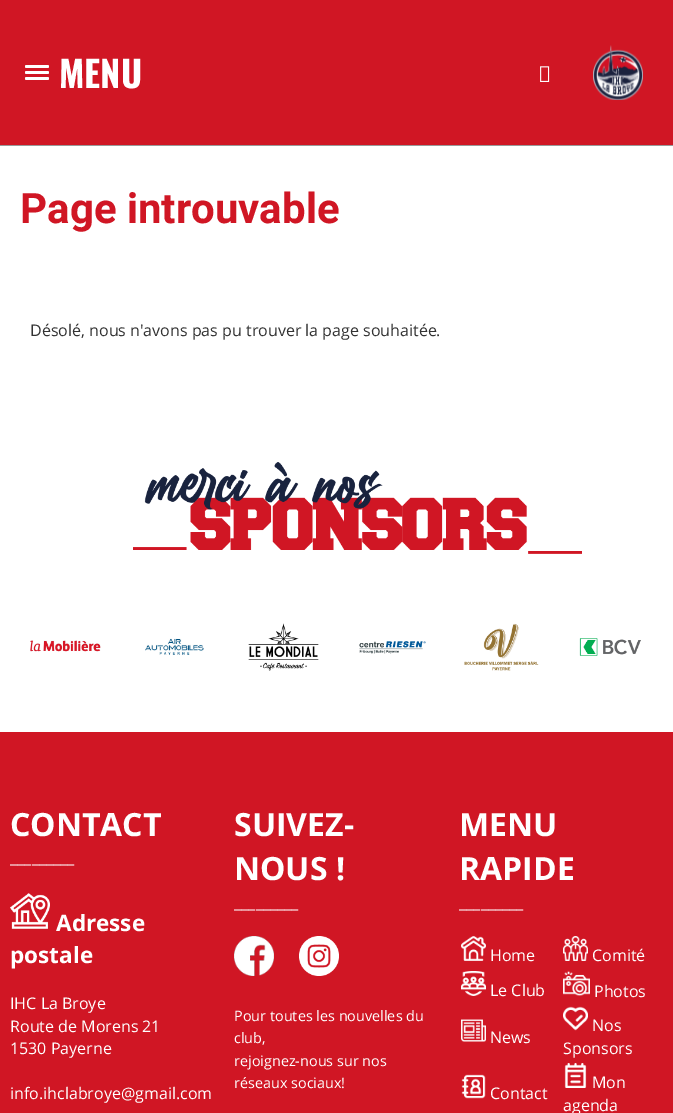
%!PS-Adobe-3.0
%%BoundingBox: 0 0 673 1113
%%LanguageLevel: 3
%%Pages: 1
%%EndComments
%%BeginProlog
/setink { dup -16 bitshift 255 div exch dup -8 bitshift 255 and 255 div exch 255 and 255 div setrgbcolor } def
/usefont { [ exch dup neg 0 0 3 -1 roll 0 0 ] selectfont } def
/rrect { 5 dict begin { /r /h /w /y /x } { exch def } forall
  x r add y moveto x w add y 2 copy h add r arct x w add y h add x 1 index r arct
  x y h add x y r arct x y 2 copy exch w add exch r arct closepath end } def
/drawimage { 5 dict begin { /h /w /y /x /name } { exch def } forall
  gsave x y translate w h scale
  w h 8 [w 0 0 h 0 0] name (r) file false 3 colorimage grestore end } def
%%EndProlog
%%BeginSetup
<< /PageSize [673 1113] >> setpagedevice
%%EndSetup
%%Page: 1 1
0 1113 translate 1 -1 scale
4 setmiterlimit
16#FFFFFF setink
0 0 673 1113 rectfill
16#D01624 setink
0 0 673 145 rectfill
16#999999 setink
0 145 673 1 rectfill
16#FFFFFF setink
25 65 24 3 1.5 rrect fill
25 71 24 3 1.5 rrect fill
25 77 24 3 1.5 rrect fill
/Oswald-Bold 36 usefont
59 88 moveto (MENU) show
(img1.raw) 540 66 10 16 drawimage
(img2.raw) 593 45 50 55 drawimage
/Roboto-Bold 42 usefont
16#D01624 setink
20 223 moveto (Page introuvable) show
/OpenSans-Regular 16 usefont
16#333333 setink
30 336 moveto (Désolé, nous n'avons pas pu trouver la page souhaitée.) show
(img3.raw) 133 462 449 92 drawimage
(img4.raw) 30 640 71 12 drawimage
(img5.raw) 145 638 59 17 drawimage
(img6.raw) 248 623 71 48 drawimage
(img7.raw) 359 641 67 13 drawimage
(img8.raw) 464 623 75 48 drawimage
(img9.raw) 579 638 62 18 drawimage
16#D01624 setink
0 732 673 381 rectfill
/OpenSans-Bold 32 usefont
16#FFFFFF setink
10 836 moveto (CONTACT) show
/OpenSans-Regular 16 usefont
10 863 moveto (_________) show
(img10.raw) 10 893 40 36 drawimage
/OpenSans-Bold 22.5 usefont
56 931 moveto (Adresse) show
10 963 moveto (postale) show
/OpenSans-Regular 16 usefont
[
    [(IHC La Broye) 10 1009]
    [(Route de Morens 21) 10 1032]
    [(1530 Payerne) 10 1054]
    [(info.ihclabroye@gmail.com) 10 1099]
] { aload pop moveto show } forall
/OpenSans-Bold 32 usefont
234 836 moveto (SUIVEZ-) show
234 880 moveto (NOUS !) show
/OpenSans-Regular 16 usefont
234 908 moveto (_________) show
(img11.raw) 234 936 40 40 drawimage
(img12.raw) 299 936 40 40 drawimage
/OpenSans-Regular 14.4 usefont
[
    [(Pour toutes les nouvelles du) 234 1021]
    [(club,) 234 1043]
    [(rejoignez-nous sur nos) 234 1066]
    [(réseaux sociaux!) 234 1088]
] { aload pop moveto show } forall
/OpenSans-Bold 32 usefont
459 836 moveto (MENU) show
459 880 moveto (RAPIDE) show
/OpenSans-Regular 16 usefont
459 908 moveto (_________) show
(img13.raw) 461 936 25 25 drawimage
490 961 moveto (Home) show
(img14.raw) 563 936 25 25 drawimage
592 961 moveto (Comité) show
(img15.raw) 461 971 25 25 drawimage
490 996 moveto (Le Club) show
(img16.raw) 563 971 27 25 drawimage
594 997 moveto (Photos) show
(img17.raw) 461 1019 25 23 drawimage
490 1043 moveto (News) show
(img18.raw) 563 1006 25 25 drawimage
592 1031 moveto (Nos) show
563 1054 moveto (Sponsors) show
(img19.raw) 461 1074 25 25 drawimage
490 1099 moveto (Contact) show
(img20.raw) 564 1063 23 25 drawimage
592 1088 moveto (Mon) show
563 1111 moveto (agenda) show
showpage
%%EOF
